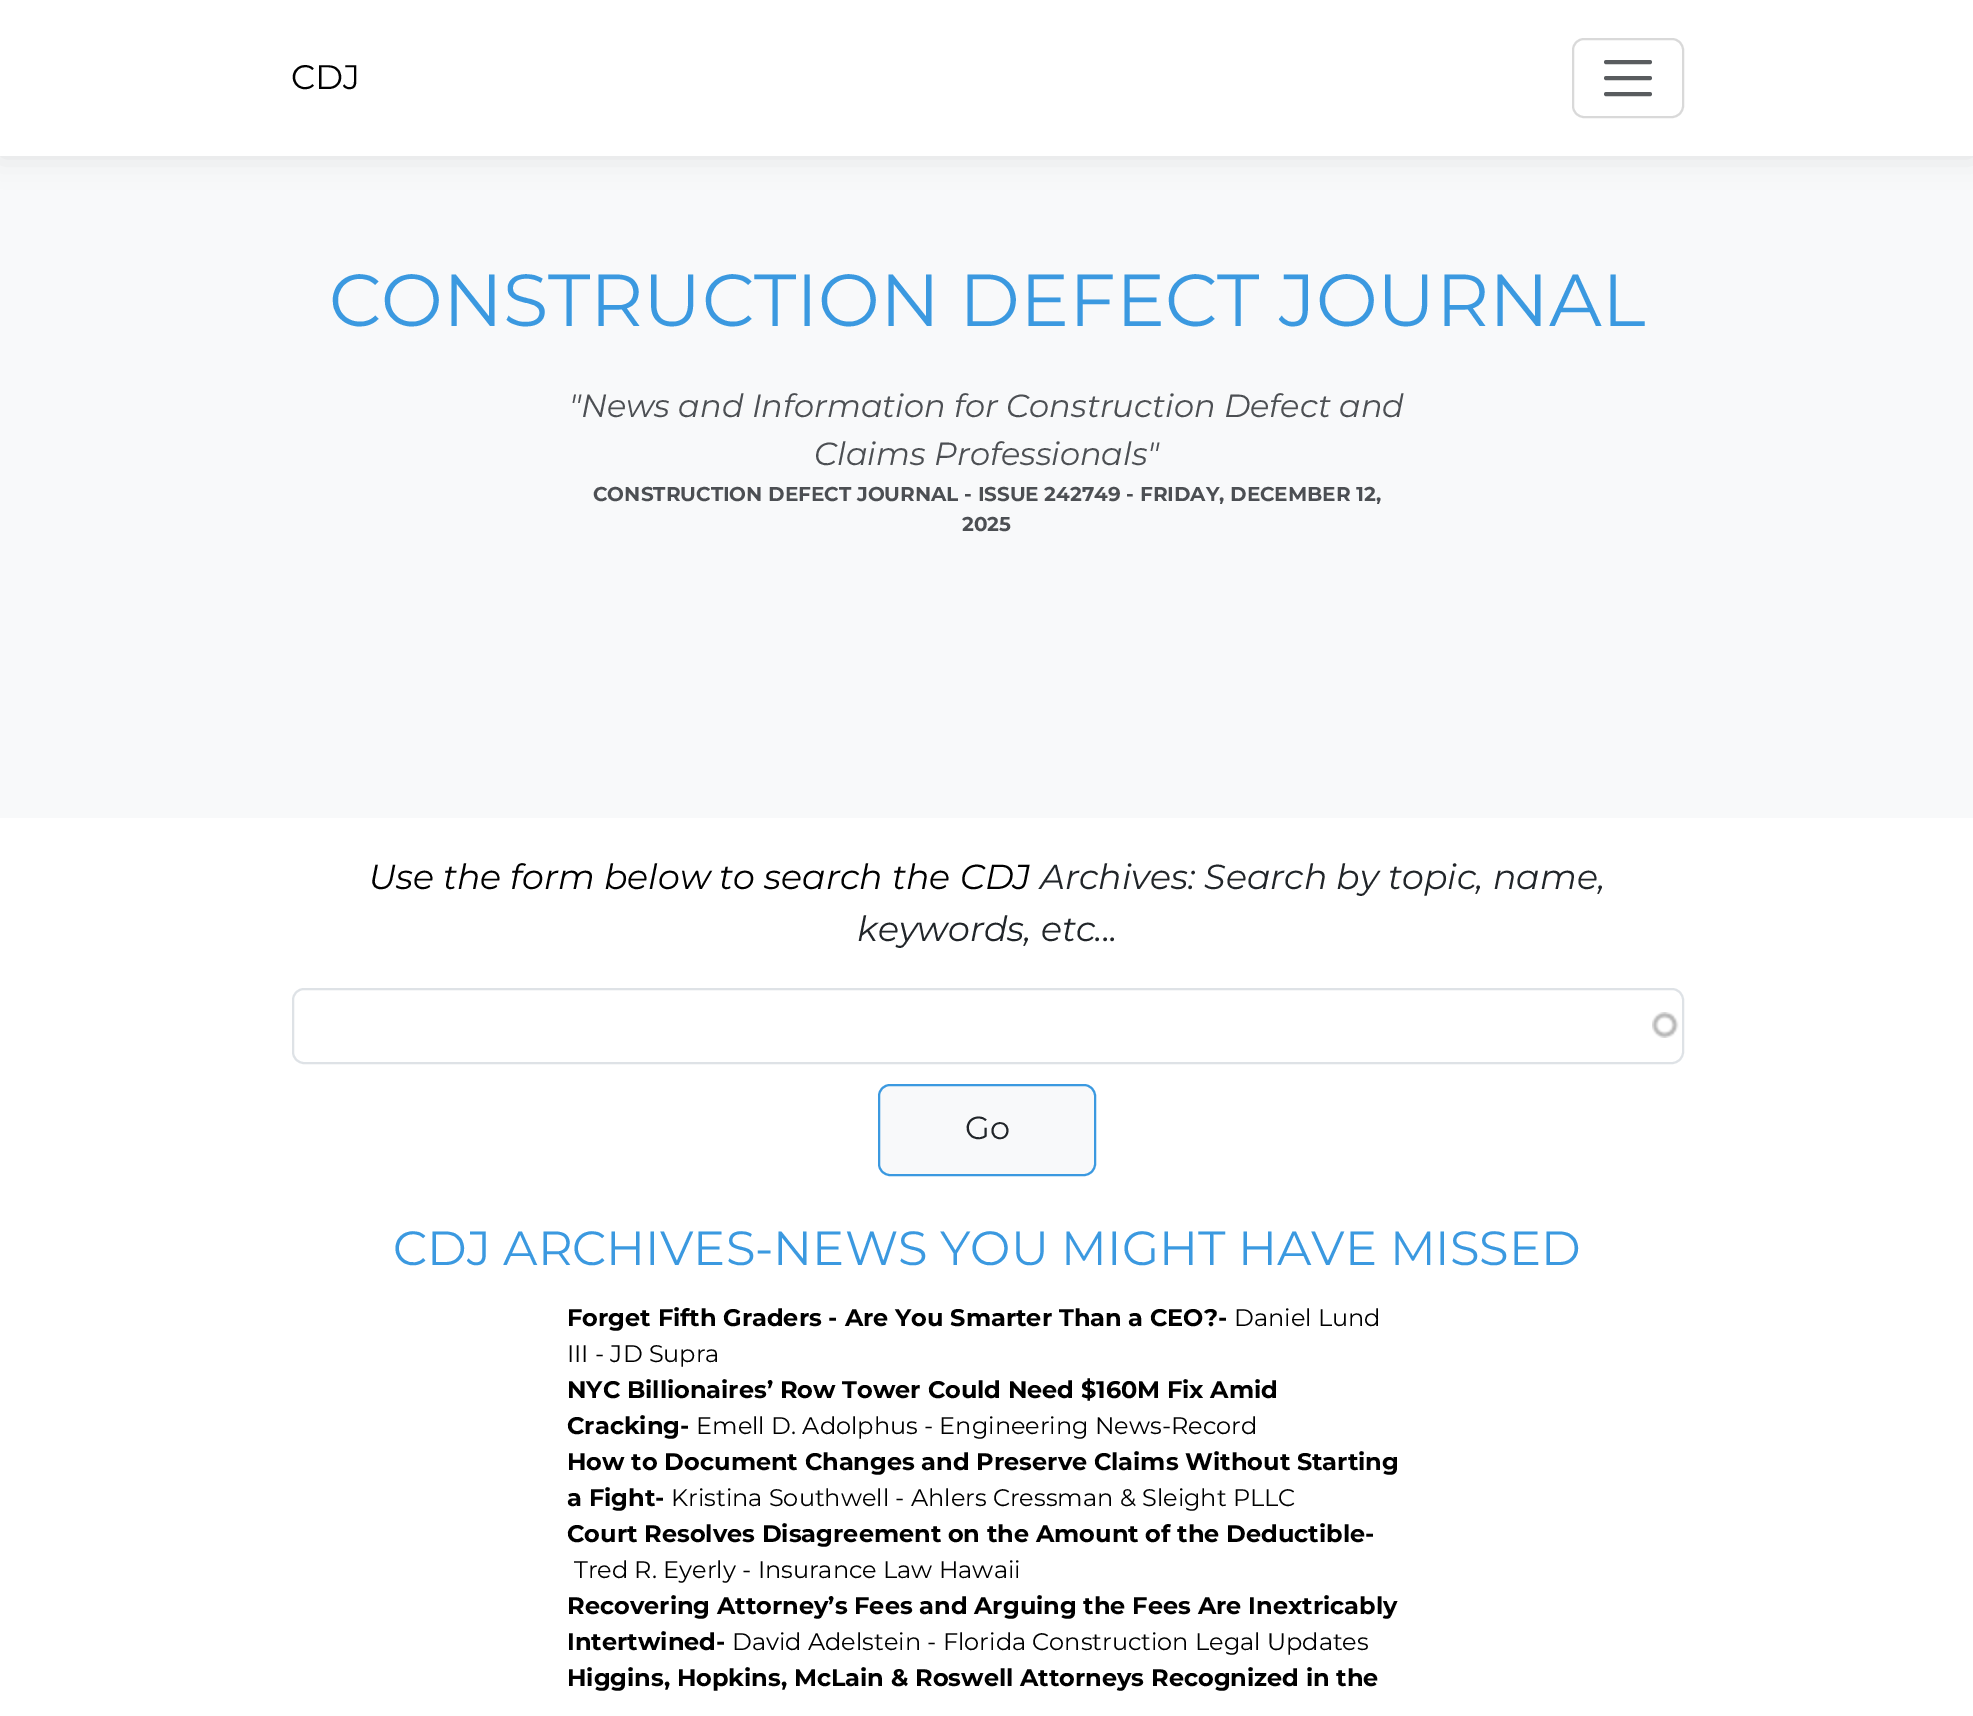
%!PS-Adobe-3.0
%%BoundingBox: 0 0 1973 1716
%%LanguageLevel: 3
%%Pages: 1
%%EndComments
%%BeginProlog
/setink { dup -16 bitshift 255 div exch dup -8 bitshift 255 and 255 div exch 255 and 255 div setrgbcolor } def
/usefont { [ exch dup neg 0 0 3 -1 roll 0 0 ] selectfont } def
/setalpha { dup .setfillconstantalpha .setstrokeconstantalpha } def
/rrect { 5 dict begin { /r /h /w /y /x } { exch def } forall
  x r add y moveto x w add y 2 copy h add r arct x w add y h add x 1 index r arct
  x y h add x y r arct x y 2 copy exch w add exch r arct closepath end } def
/softshadow { 12 dict begin { /a /b /q /h /w /y /x } { exch def } forall gsave /was 0 def
  9 -2 -9 { dup b mul 4 div /e exch def 1 sub .425 mul 2.718 exch exp 1 add a .99 .min exch div /now exch def
    1 1 now sub 1 was sub div sub setalpha /was now def
    w h .min e 2 mul add 0 gt { x e sub y e sub w e 2 mul add h e 2 mul add
      q e add b .6 mul add w h .min 2 div e add .min 0 .max rrect fill } if } for grestore end } def
/drawimage { 5 dict begin { /h /w /y /x /name } { exch def } forall
  gsave x y translate w h scale
  w h 8 [w 0 0 h 0 0] name (r) file false 3 colorimage grestore end } def
%%EndProlog
%%BeginSetup
<< /PageSize [1973 1716] /PageUsesTransparency true >> setpagedevice
%%EndSetup
%%Page: 1 1
0 .pushpdf14devicefilter
0 1716 translate 1 -1 scale
4 setmiterlimit
16#FFFFFF setink
0 0 1973 1716 rectfill
16#F8F9FA setink
0 156 1973 662 rectfill
16#000000 setink
0 0 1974 156 0 15 0.1 softshadow
16#FFFFFF setink
0 0 1973 156 rectfill
/Montserrat-Regular 34 usefont
16#000000 setink
291 89 moveto (CDJ) show
16#D9D9D9 setink
2 setlinewidth
1573 39 110 78 11 rrect stroke
16#595C5F setink
4 setlinewidth
1 setlinecap
1606 62 moveto 1650 62 lineto 1606 78 moveto 1650 78 lineto 1606 94 moveto 1650 94 lineto stroke
/Montserrat-Regular 73.6 usefont
16#3B99E0 setink
329 326 moveto (CONSTRUCTION DEFECT JOURNAL) show
/Montserrat-Italic 32 usefont
16#4C4F53 setink
569 417 moveto ("News and Information for Construction Defect and) show
814 465 moveto (Claims Professionals") show
/Montserrat-Bold 20 usefont
593 501 moveto (CONSTRUCTION DEFECT JOURNAL - ISSUE 242749 - FRIDAY, DECEMBER 12,) show
962 531 moveto (2025) show
/Montserrat-Italic 34.75 usefont
16#000000 setink
369 889 moveto (Use the form below to search the CDJ) show
16#212529 setink
1040 889 moveto (Archives: Search by topic, name,) show
857 941 moveto (keywords, etc...) show
(img1.raw) 1652 1012 27 26 drawimage
16#DEE2E6 setink
2 setlinewidth
0 setlinecap
293 989 1390 74 11 rrect stroke
16#F8F9FA setink
879 1085 216 90 11 rrect gsave fill grestore
16#3B99E0 setink
stroke
/Montserrat-Regular 32 usefont
16#212529 setink
965 1139 moveto (Go) show
/Montserrat-Regular 48 usefont
16#3B99E0 setink
393 1265 moveto (CDJ ARCHIVES-NEWS YOU MIGHT HAVE MISSED) show
/Montserrat-Bold 24 usefont
16#000000 setink
567 1326 moveto (Forget Fifth Graders - Are You Smarter Than a CEO?-) show
/Montserrat-Regular 24 usefont
1234 1326 moveto (Daniel Lund) show
567 1362 moveto (III - JD Supra) show
/Montserrat-Bold 24 usefont
567 1398 moveto (NYC Billionaires’ Row Tower Could Need $160M Fix Amid) show
567 1434 moveto (Cracking-) show
/Montserrat-Regular 24 usefont
696 1434 moveto (Emell D. Adolphus - Engineering News-Record) show
/Montserrat-Bold 24 usefont
567 1470 moveto (How to Document Changes and Preserve Claims Without Starting) show
567 1506 moveto (a Fight-) show
/Montserrat-Regular 24 usefont
671 1506 moveto (Kristina Southwell - Ahlers Cressman & Sleight PLLC) show
/Montserrat-Bold 24 usefont
567 1542 moveto (Court Resolves Disagreement on the Amount of the Deductible-) show
/Montserrat-Regular 24 usefont
574 1578 moveto (Tred R. Eyerly - Insurance Law Hawaii) show
/Montserrat-Bold 24 usefont
567 1614 moveto (Recovering Attorney’s Fees and Arguing the Fees Are Inextricably) show
567 1650 moveto (Intertwined-) show
/Montserrat-Regular 24 usefont
732 1650 moveto (David Adelstein - Florida Construction Legal Updates) show
/Montserrat-Bold 24 usefont
567 1686 moveto (Higgins, Hopkins, McLain & Roswell Attorneys Recognized in the) show
.poppdf14devicefilter showpage
%%EOF
